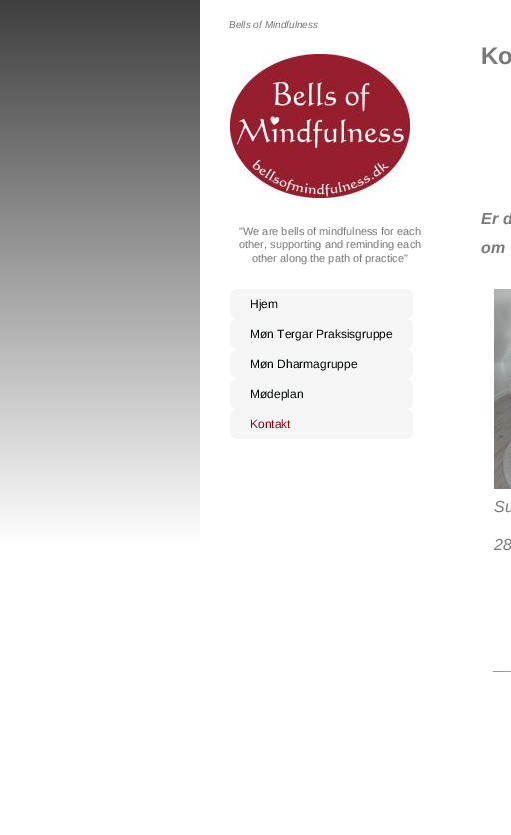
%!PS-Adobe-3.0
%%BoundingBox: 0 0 511 835
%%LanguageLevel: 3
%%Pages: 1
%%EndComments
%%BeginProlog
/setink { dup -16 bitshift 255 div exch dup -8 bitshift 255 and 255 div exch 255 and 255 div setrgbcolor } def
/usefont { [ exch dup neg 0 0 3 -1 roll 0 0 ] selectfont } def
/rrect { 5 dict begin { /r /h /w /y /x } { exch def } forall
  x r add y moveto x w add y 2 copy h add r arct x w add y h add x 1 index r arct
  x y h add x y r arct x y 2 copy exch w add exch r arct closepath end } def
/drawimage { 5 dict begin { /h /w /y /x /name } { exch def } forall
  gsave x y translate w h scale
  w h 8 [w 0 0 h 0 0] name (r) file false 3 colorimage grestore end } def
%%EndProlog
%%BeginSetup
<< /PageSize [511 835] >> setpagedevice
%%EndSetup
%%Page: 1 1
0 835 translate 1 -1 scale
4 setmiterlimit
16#FFFFFF setink
0 0 511 835 rectfill
/LiberationSans-Italic 10 usefont
16#797979 setink
229 28 moveto (Bells of Mindfulness) show
/LiberationSans-Bold 24 usefont
481 64 moveto (Ko) show
/LiberationSans-BoldItalic 16 usefont
481 224 moveto 1 0 32 (Er d) widthshow
481 253 moveto (om) show
(img1.raw) 494 289 17 200 drawimage
/LiberationSans-Italic 16 usefont
[
    [(Su) 494 512]
    [(28) 494 550]
    [(__) 494 670]
] { aload pop moveto show } forall
gsave 0 0 moveto 200 0 lineto 200 541 lineto 0 541 lineto closepath clip newpath
<< /ShadingType 2 /ColorSpace /DeviceRGB /Coords [100 548 100 0] /Extend [true true] /Function << /FunctionType 2 /Domain [0 1] /C0 [1 1 1] /C1 [0.247 0.247 0.247] /N 1 >> >> shfill grestore
(img2.raw) 230 54 180 144 drawimage
/LiberationSans-Regular 11 usefont
[
    [("We are bells of mindfulness for each) 239 235]
    [(other, supporting and reminding each) 239 248]
    [(other along the path of practice") 252 262]
] { aload pop moveto show } forall
16#F5F5F5 setink
230 289 183 30 8 rrect fill
/LiberationSans-Regular 12 usefont
16#040707 setink
250 308 moveto (Hjem) show
16#F5F5F5 setink
230 319 183 30 8 rrect fill
16#040707 setink
250 338 moveto (Møn Tergar Praksisgruppe) show
16#F5F5F5 setink
230 349 183 30 8 rrect fill
16#040707 setink
250 368 moveto (Møn Dharmagruppe) show
16#F5F5F5 setink
230 379 183 30 8 rrect fill
16#040707 setink
250 398 moveto (Mødeplan) show
16#F5F5F5 setink
230 409 183 30 8 rrect fill
16#800618 setink
250 428 moveto (Kontakt) show
showpage
%%EOF
